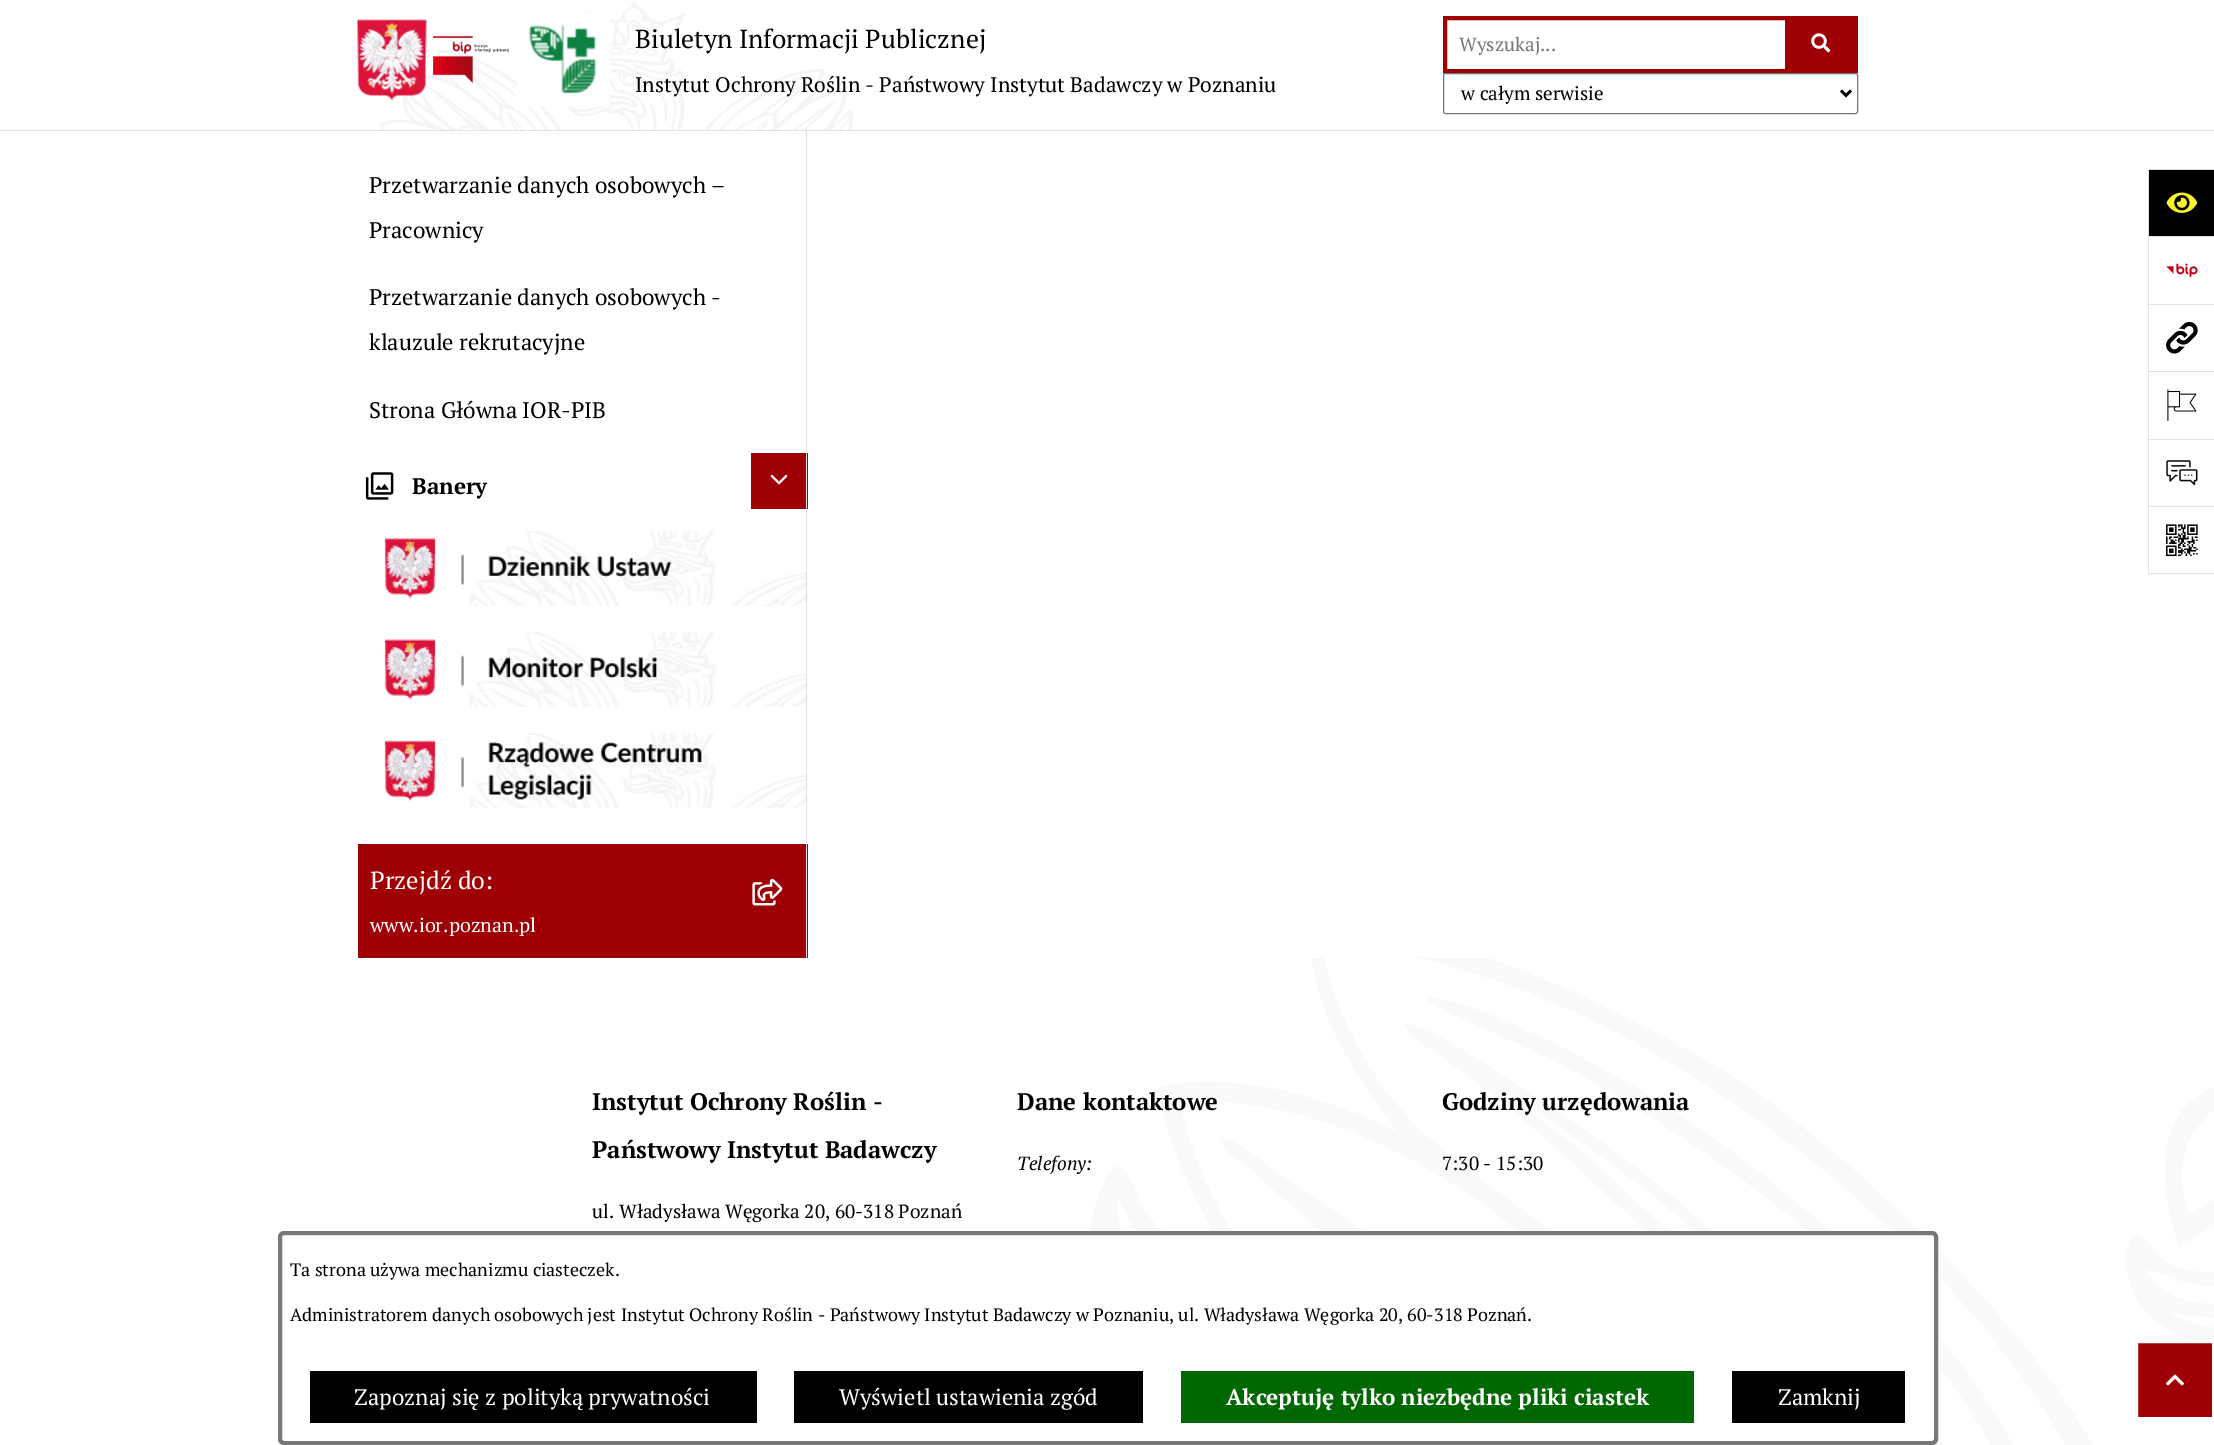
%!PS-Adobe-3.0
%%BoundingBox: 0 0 2214 1445
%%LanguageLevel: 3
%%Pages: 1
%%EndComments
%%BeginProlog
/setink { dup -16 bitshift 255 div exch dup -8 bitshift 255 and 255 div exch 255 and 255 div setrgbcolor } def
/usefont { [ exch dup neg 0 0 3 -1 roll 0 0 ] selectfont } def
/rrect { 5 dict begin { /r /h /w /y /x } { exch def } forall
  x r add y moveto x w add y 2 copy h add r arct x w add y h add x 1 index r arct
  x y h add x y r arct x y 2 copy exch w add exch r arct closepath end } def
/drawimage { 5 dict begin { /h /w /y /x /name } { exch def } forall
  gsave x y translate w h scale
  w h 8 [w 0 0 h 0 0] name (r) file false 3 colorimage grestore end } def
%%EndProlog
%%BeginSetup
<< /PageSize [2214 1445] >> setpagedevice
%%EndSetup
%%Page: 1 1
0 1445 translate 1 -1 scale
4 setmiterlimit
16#FFFFFF setink
0 0 2214 1445 rectfill
16#E1E1E1 setink
0 130 2214 1 rectfill
(img1.raw) 379 1 475 129 drawimage
(img2.raw) 357 19 70 82 drawimage
(img3.raw) 433 36 76 48 drawimage
(img4.raw) 516 12 94 95 drawimage
/PTSerif-Regular 25.9 usefont
16#000000 setink
635 48 moveto (Biuletyn Informacji Publicznej) show
/PTSerif-Regular 21.05 usefont
635 92 moveto (Instytut Ochrony Roślin - Państwowy Instytut Badawczy w Poznaniu) show
16#9E0005 setink
4 setlinewidth
1445 18 342 53 rectstroke
/PTSerif-Regular 19.1 usefont
16#757575 setink
1459 51 moveto (Wyszukaj...) show
16#9E0005 setink
1789 16 69 57 rectfill
(img5.raw) 1811 33 20 20 drawimage
16#767676 setink
1 setlinewidth
1443.5 73.5 414 40 2 rrect stroke
16#000000 setink
2.5 setlinewidth
1841 90.5 moveto 1846 95.5 lineto 1851 90.5 lineto stroke
1461 100 moveto (w całym serwisie) show
/PTSerif-Regular 22.5 usefont
[
    [(Przetwarzanie danych osobowych –) 369 193]
    [(Pracownicy) 369 238]
    [(Przetwarzanie danych osobowych -) 369 305]
    [(klauzule rekrutacyjne) 369 350]
    [(Strona Główna IOR-PIB) 369 418]
] { aload pop moveto show } forall
16#9E0005 setink
751 453 57 56 rectfill
(img14.raw) 384 531 424 75 drawimage
(img15.raw) 384 632 424 75 drawimage
(img16.raw) 384 733 424 75 drawimage
[
    [358 844 450 114 16#9E0005]
    [806 131 1 827 16#E1E1E1]
    [2149 170 65 66 16#000000]
    [2148 169 66 1 16#E1E1E1]
    [2148 169 1 67 16#E1E1E1]
] { aload pop setink rectfill } forall
(img6.raw) 2166 192 32 21 drawimage
2148 236 66 1 rectfill
2148 236 1 68 rectfill
(img7.raw) 2166 263 32 14 drawimage
2148 304 66 1 rectfill
2148 304 1 67 rectfill
(img8.raw) 2166 321 32 33 drawimage
2148 371 66 1 rectfill
2148 371 1 68 rectfill
(img9.raw) 2167 389 30 32 drawimage
2148 439 66 1 rectfill
2148 439 1 67 rectfill
(img10.raw) 2166 460 32 26 drawimage
[
    [2148 506 66 1 16#E1E1E1]
    [2148 573 66 1 16#E1E1E1]
    [2148 506 1 68 16#E1E1E1]
] { aload pop setink rectfill } forall
(img11.raw) 2166 524 32 33 drawimage
(img12.raw) 365 472 29 28 drawimage
/PTSerif-Bold 22.5 usefont
16#000000 setink
412 494 moveto (Banery) show
(img13.raw) 770 474 18 11 drawimage
/PTSerif-Regular 24.75 usefont
16#FFFFFF setink
370 889 moveto (Przejdź do:) show
(img17.raw) 752 878 31 28 drawimage
/PTSerif-Regular 19.75 usefont
370 932 moveto (www.ior.poznan.pl) show
(img18.raw) 1090 957 1124 488 drawimage
/PTSerif-Bold 23.9 usefont
16#000000 setink
592 1110 moveto (Instytut Ochrony Roślin -) show
592 1158 moveto (Państwowy Instytut Badawczy) show
/PTSerif-Regular 19.1 usefont
592 1218 moveto (ul. Władysława Węgorka 20, 60-318 Poznań) show
/PTSerif-Bold 23.9 usefont
1017 1110 moveto (Dane kontaktowe) show
/PTSerif-Italic 19.1 usefont
1017 1170 moveto (Telefony:) show
/PTSerif-Bold 23.9 usefont
1442 1110 moveto (Godziny urzędowania) show
/PTSerif-Regular 19.1 usefont
1442 1170 moveto (7:30 - 15:30) show
16#9E0005 setink
2136.5 1341.5 moveto 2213.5 1341.5 lineto 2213.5 1418.5 lineto 2136.5 1418.5 lineto closepath gsave fill grestore
16#FFFFFF setink
3 setlinewidth
stroke
(img19.raw) 2166 1374 18 12 drawimage
280 1233 1656 210 4 rrect gsave fill grestore
16#787878 setink
4 setlinewidth
stroke
/PTSerif-Regular 18 usefont
16#000000 setink
290 1276 moveto (Ta strona używa mechanizmu ciasteczek.) show
290 1321 moveto (Administratorem danych osobowych jest Instytut Ochrony Roślin - Państwowy Instytut Badawczy w Poznaniu, ul. Władysława Węgorka 20, 60-318 Poznań.) show
310 1371 447 52 rectfill
/PTSerif-Regular 22.5 usefont
16#FFFFFF setink
354 1405 moveto (Zapoznaj się z polityką prywatności) show
16#000000 setink
794 1371 349 52 rectfill
16#FFFFFF setink
839 1405 moveto (Wyświetl ustawienia zgód) show
16#006800 setink
1181 1371 513 52 rectfill
/PTSerif-Bold 22.5 usefont
16#FFFFFF setink
1226 1405 moveto (Akceptuję tylko niezbędne pliki ciastek) show
16#000000 setink
1732 1371 173 52 rectfill
/PTSerif-Regular 22.5 usefont
16#FFFFFF setink
1778 1405 moveto (Zamknij) show
showpage
%%EOF
